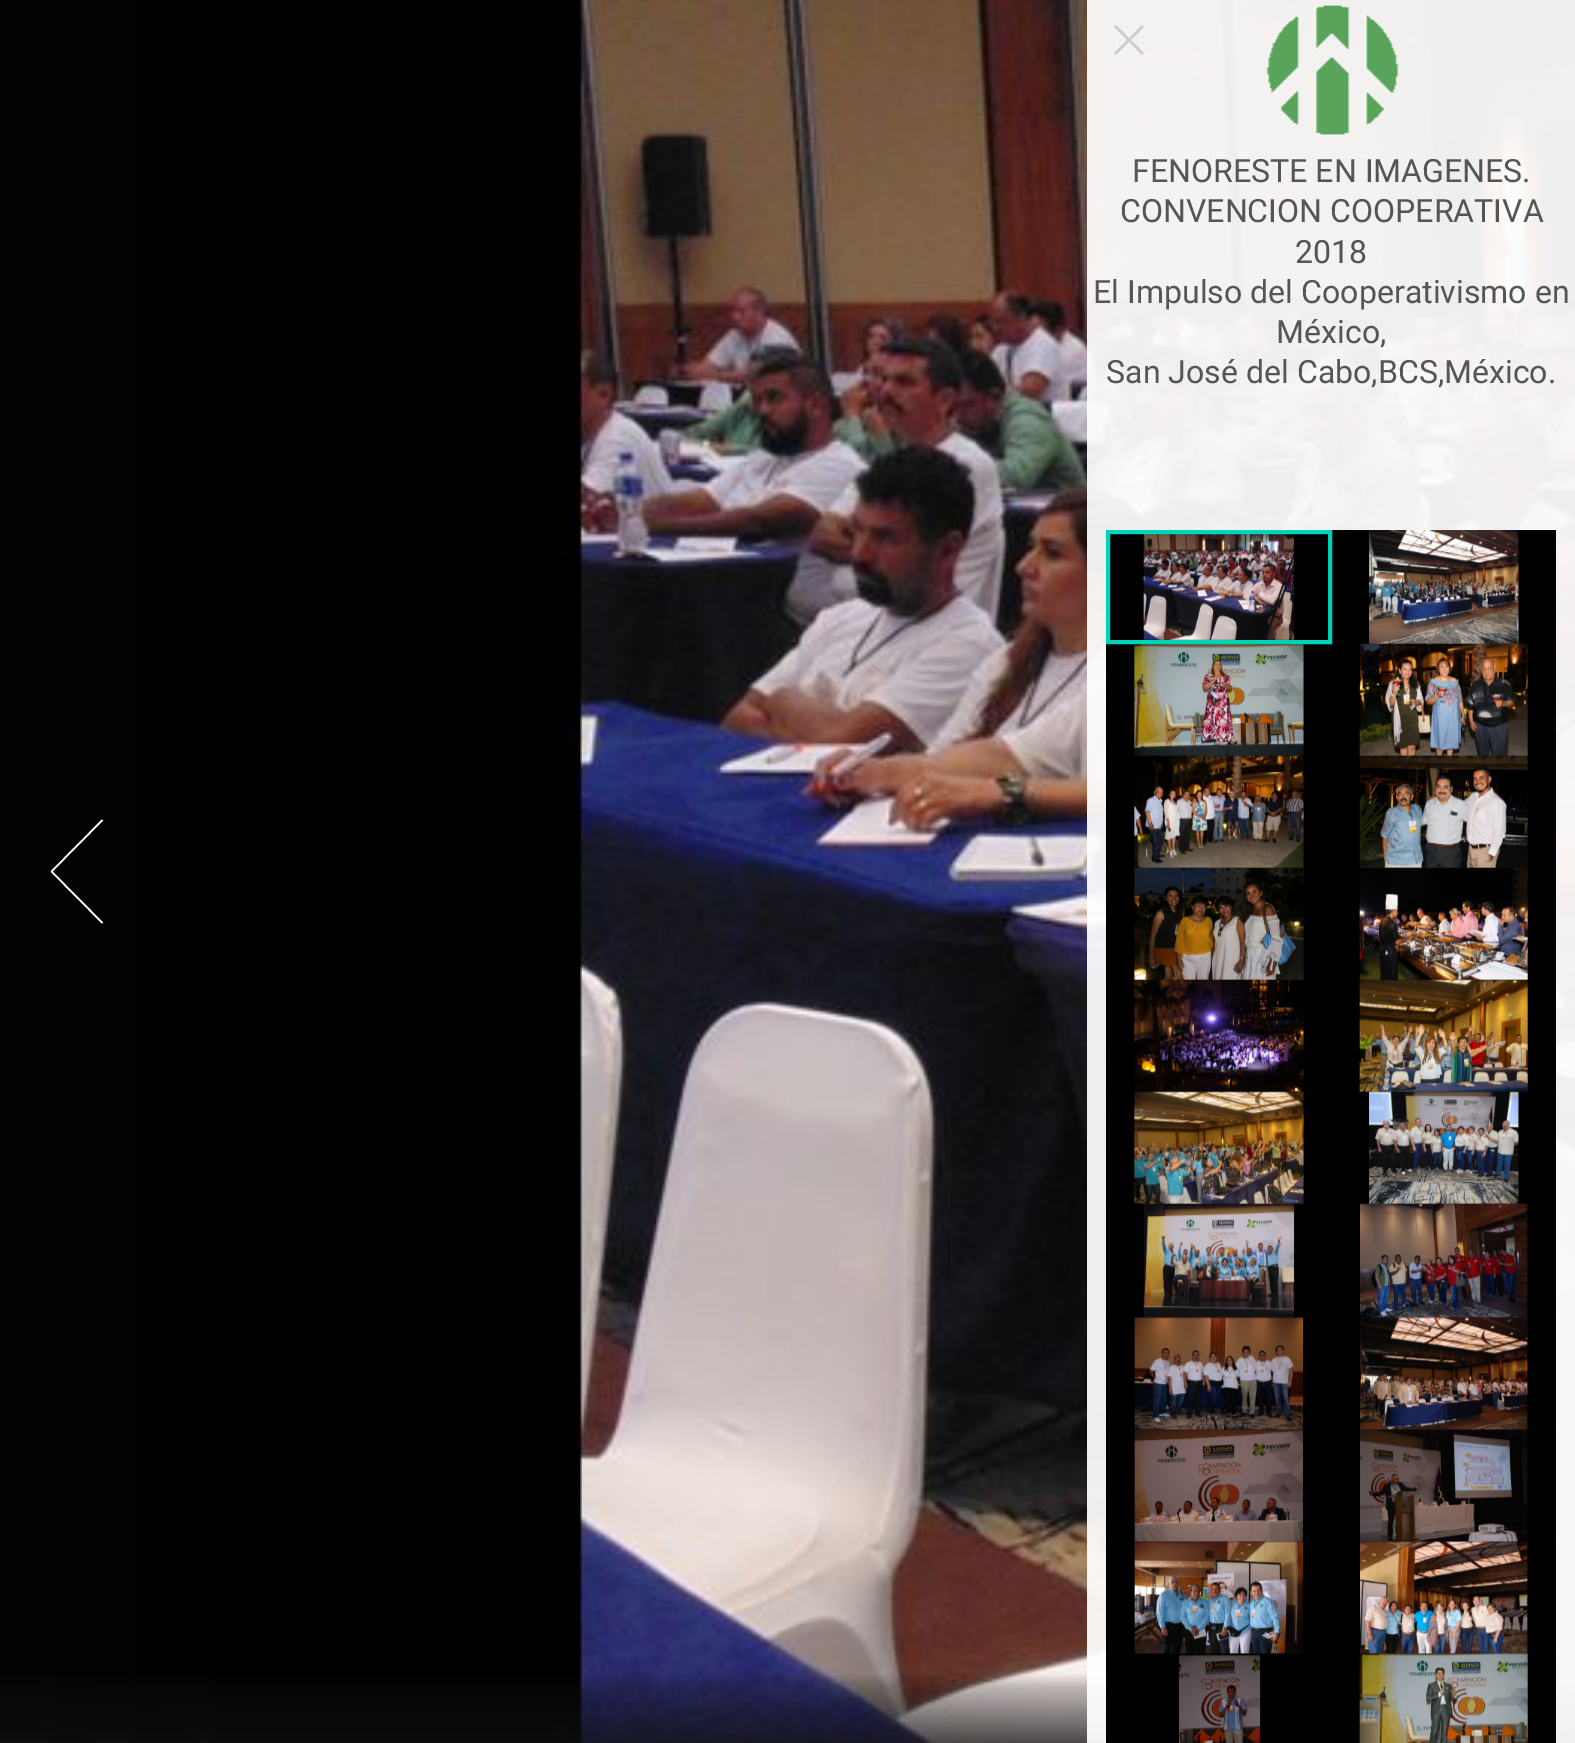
%!PS-Adobe-3.0
%%BoundingBox: 0 0 1575 1743
%%LanguageLevel: 3
%%Pages: 1
%%EndComments
%%BeginProlog
/setink { dup -16 bitshift 255 div exch dup -8 bitshift 255 and 255 div exch 255 and 255 div setrgbcolor } def
/usefont { [ exch dup neg 0 0 3 -1 roll 0 0 ] selectfont } def
/setalpha { dup .setfillconstantalpha .setstrokeconstantalpha } def
/drawimage { 5 dict begin { /h /w /y /x /name } { exch def } forall
  gsave x y translate w h scale
  w h 8 [w 0 0 h 0 0] name (r) file false 3 colorimage grestore end } def
%%EndProlog
%%BeginSetup
<< /PageSize [1575 1743] /PageUsesTransparency true >> setpagedevice
%%EndSetup
%%Page: 1 1
0 .pushpdf14devicefilter
0 1743 translate 1 -1 scale
4 setmiterlimit
16#FFFFFF setink
0 0 1575 1743 rectfill
(img1.raw) 0 0 1575 1743 drawimage
1.6 setlinewidth
102.5 820 moveto 51.5 871.5 lineto stroke
102.5 923 moveto 51.5 871.5 lineto stroke
0.93 setalpha
1087 0 488 1743 rectfill
1 setalpha
16#CCCCCC setink
2.6 setlinewidth
1115 26 moveto 1143 54 lineto 1115 54 moveto 1143 26 lineto stroke
(img2.raw) 1266 5 133 131 drawimage
/Roboto-Regular 32.1 usefont
16#555555 setink
[
    [(FENORESTE EN IMAGENES.) 1132 182]
    [(CONVENCION COOPERATIVA) 1120 222]
    [(2018) 1295 263]
    [(El Impulso del Cooperativismo en) 1093 303]
    [(México,) 1276 343]
    [(San José del Cabo,BCS,México.) 1106 383]
] { aload pop moveto show } forall
(img3.raw) 1110 534 218 106 drawimage
16#101010 setink
1332 530 224 114 rectfill
(img4.raw) 1332 530 224 114 drawimage
1106 644 450 112 rectfill
(img6.raw) 1106 644 226 112 drawimage
(img5.raw) 1331 643 225 113 drawimage
0.15 setalpha
16#000000 setink
5 setlinewidth
1108.5 532.5 221 109 rectstroke
1 setalpha
16#00D3B7 setink
4 setlinewidth
1108 532 222 110 rectstroke
16#101010 setink
1106 756 450 112 rectfill
(img7.raw) 1106 755 226 113 drawimage
(img8.raw) 1331 755 225 113 drawimage
1106 868 450 112 rectfill
(img9.raw) 1106 867 226 113 drawimage
(img10.raw) 1331 867 225 113 drawimage
1106 980 450 112 rectfill
(img11.raw) 1106 979 226 113 drawimage
(img12.raw) 1331 979 225 113 drawimage
1106 1092 450 112 rectfill
(img13.raw) 1106 1091 226 113 drawimage
(img14.raw) 1331 1091 225 113 drawimage
1106 1204 450 114 rectfill
(img15.raw) 1106 1203 226 116 drawimage
(img16.raw) 1331 1203 225 116 drawimage
(img17.raw) 1106 1317 226 114 drawimage
1332 1318 224 112 rectfill
(img18.raw) 1331 1317 225 114 drawimage
(img19.raw) 1106 1429 226 113 drawimage
1332 1430 224 112 rectfill
(img20.raw) 1331 1429 225 113 drawimage
1106 1542 450 112 rectfill
(img21.raw) 1106 1541 226 113 drawimage
(img22.raw) 1331 1541 225 113 drawimage
1106 1654 450 89 rectfill
(img23.raw) 1106 1653 226 90 drawimage
(img24.raw) 1332 1653 224 90 drawimage
.poppdf14devicefilter showpage
%%EOF
